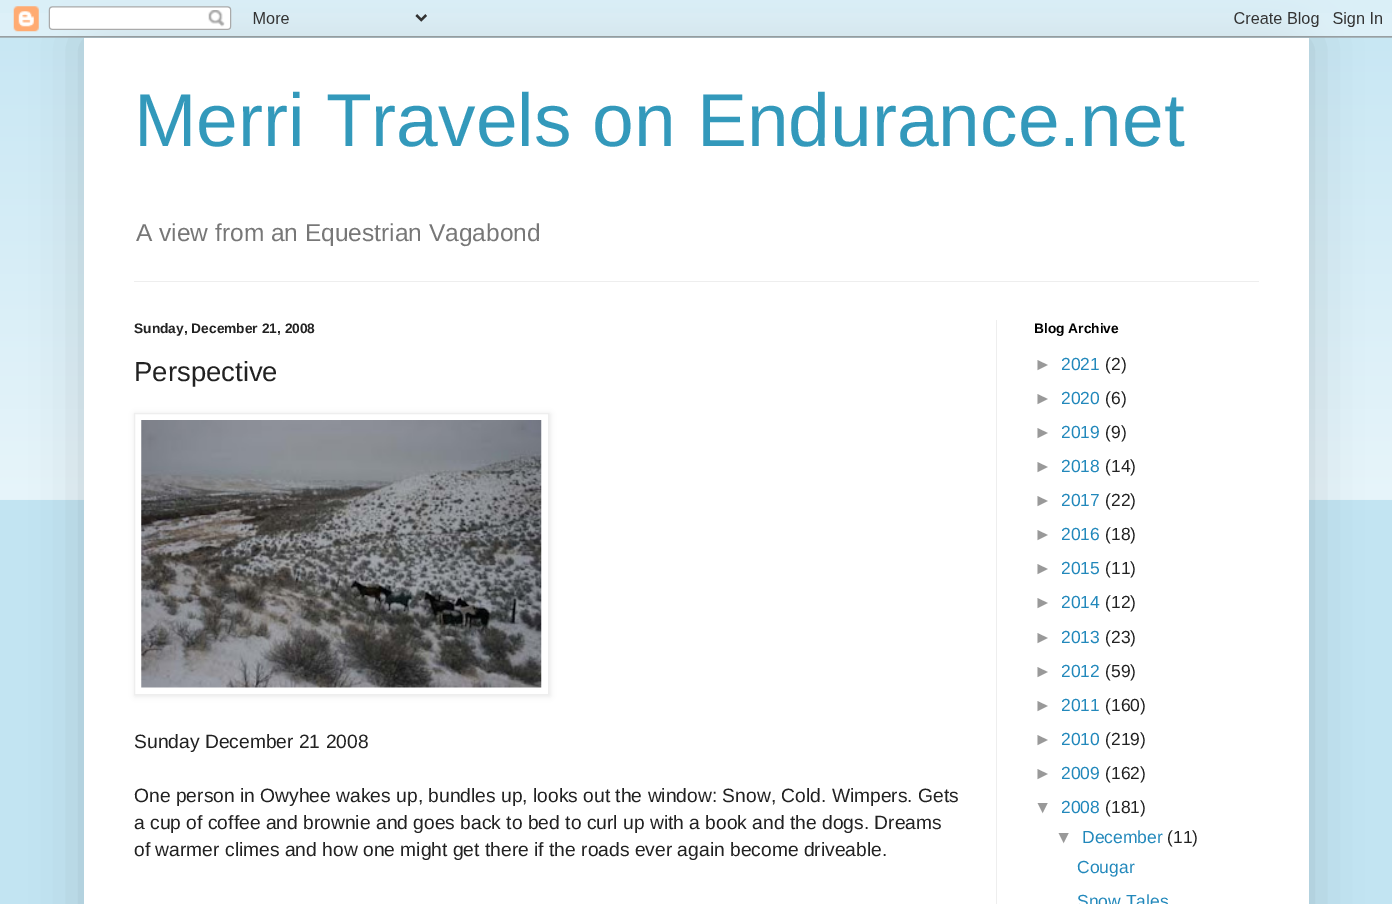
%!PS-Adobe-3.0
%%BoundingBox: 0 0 1392 904
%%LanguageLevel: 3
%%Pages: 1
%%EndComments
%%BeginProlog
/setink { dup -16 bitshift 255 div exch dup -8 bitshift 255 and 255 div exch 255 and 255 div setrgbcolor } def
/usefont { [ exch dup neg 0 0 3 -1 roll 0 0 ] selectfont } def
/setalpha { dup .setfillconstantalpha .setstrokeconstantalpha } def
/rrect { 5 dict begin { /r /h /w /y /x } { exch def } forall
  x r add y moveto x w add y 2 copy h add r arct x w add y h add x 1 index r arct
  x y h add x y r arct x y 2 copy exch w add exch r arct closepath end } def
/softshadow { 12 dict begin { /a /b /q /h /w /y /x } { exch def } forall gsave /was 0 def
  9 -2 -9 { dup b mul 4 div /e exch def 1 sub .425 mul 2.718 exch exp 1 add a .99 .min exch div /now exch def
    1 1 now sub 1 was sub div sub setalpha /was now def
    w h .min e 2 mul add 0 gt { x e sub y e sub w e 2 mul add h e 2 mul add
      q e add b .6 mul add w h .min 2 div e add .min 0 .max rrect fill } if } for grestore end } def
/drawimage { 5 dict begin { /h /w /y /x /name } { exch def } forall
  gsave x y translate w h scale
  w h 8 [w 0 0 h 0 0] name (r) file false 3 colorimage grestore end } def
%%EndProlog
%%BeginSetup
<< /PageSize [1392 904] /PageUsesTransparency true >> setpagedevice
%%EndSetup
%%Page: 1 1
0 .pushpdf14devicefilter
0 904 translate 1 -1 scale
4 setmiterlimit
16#C2E4F2 setink
0 0 1392 904 rectfill
(img2.raw) 0 13 1392 487 drawimage
16#000000 setink
84 38 1225 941 0 25 0.15 softshadow
(img1.raw) 0 0 1392 38 drawimage
16#FFFFFF setink
84 38 1225 866 rectfill
/LiberationSans-Regular 75 usefont
16#3399BB setink
134 146 moveto (Merri Travels on Endurance.net) show
/LiberationSans-Regular 24.5 usefont
16#777777 setink
136 241 moveto (A view from an Equestrian Vagabond) show
16#EEEEEE setink
134 281 1125 1 rectfill
996 320 1 584 rectfill
/LiberationSans-Bold 13.75 usefont
16#222222 setink
134 333 moveto (Sunday, December 21, 2008) show
/LiberationSans-Regular 27.5 usefont
134 381 moveto (Perspective) show
16#000000 setink
135 414 415 282 0 3 0.1 softshadow
16#FFFFFF setink
134.5 413.5 moveto 548.5 413.5 lineto 548.5 694.5 lineto 134.5 694.5 lineto closepath gsave fill grestore
16#EEEEEE setink
stroke
(img3.raw) 141 420 401 268 drawimage
/LiberationSans-Regular 19.25 usefont
16#222222 setink
[
    [(Sunday December 21 2008) 134 748]
    [(One person in Owyhee wakes up, bundles up, looks out the window: Snow, Cold. Wimpers. Gets) 134 802]
    [(a cup of coffee and brownie and goes back to bed to curl up with a book and the dogs. Dreams) 134 829]
    [(of warmer climes and how one might get there if the roads ever again become driveable.) 134 856]
] { aload pop moveto show } forall
/LiberationSans-Bold 13.75 usefont
16#000000 setink
1034 333 moveto (Blog Archive) show
/LiberationSans-Regular 17.5 usefont
16#999999 setink
1034 370 moveto (►) show
16#2288BB setink
1061 370 moveto (2021) show
16#222222 setink
1105 370 moveto (\(2\)) show
16#999999 setink
1034 404 moveto (►) show
16#2288BB setink
1061 404 moveto (2020) show
16#222222 setink
1105 404 moveto (\(6\)) show
16#999999 setink
1034 438 moveto (►) show
16#2288BB setink
1061 438 moveto (2019) show
16#222222 setink
1105 438 moveto (\(9\)) show
16#999999 setink
1034 472 moveto (►) show
16#2288BB setink
1061 472 moveto (2018) show
16#222222 setink
1105 472 moveto (\(14\)) show
16#999999 setink
1034 506 moveto (►) show
16#2288BB setink
1061 506 moveto (2017) show
16#222222 setink
1105 506 moveto (\(22\)) show
16#999999 setink
1034 540 moveto (►) show
16#2288BB setink
1061 540 moveto (2016) show
16#222222 setink
1105 540 moveto (\(18\)) show
16#999999 setink
1034 574 moveto (►) show
16#2288BB setink
1061 574 moveto (2015) show
16#222222 setink
1105 574 moveto (\(11\)) show
16#999999 setink
1034 608 moveto (►) show
16#2288BB setink
1061 608 moveto (2014) show
16#222222 setink
1105 608 moveto (\(12\)) show
16#999999 setink
1034 643 moveto (►) show
16#2288BB setink
1061 643 moveto (2013) show
16#222222 setink
1105 643 moveto (\(23\)) show
16#999999 setink
1034 677 moveto (►) show
16#2288BB setink
1061 677 moveto (2012) show
16#222222 setink
1105 677 moveto (\(59\)) show
16#999999 setink
1034 711 moveto (►) show
16#2288BB setink
1061 711 moveto (2011) show
16#222222 setink
1105 711 moveto (\(160\)) show
16#999999 setink
1034 745 moveto (►) show
16#2288BB setink
1061 745 moveto (2010) show
16#222222 setink
1105 745 moveto (\(219\)) show
16#999999 setink
1034 779 moveto (►) show
16#2288BB setink
1061 779 moveto (2009) show
16#222222 setink
1105 779 moveto (\(162\)) show
16#999999 setink
1034 813 moveto (▼) show
16#2288BB setink
1061 813 moveto (2008) show
16#222222 setink
1105 813 moveto (\(181\)) show
16#999999 setink
1055 843 moveto (▼) show
16#2288BB setink
1082 843 moveto (December) show
16#222222 setink
1167 843 moveto (\(11\)) show
16#2288BB setink
1077 873 moveto (Cougar) show
1077 907 moveto (Snow Tales) show
.poppdf14devicefilter showpage
%%EOF
